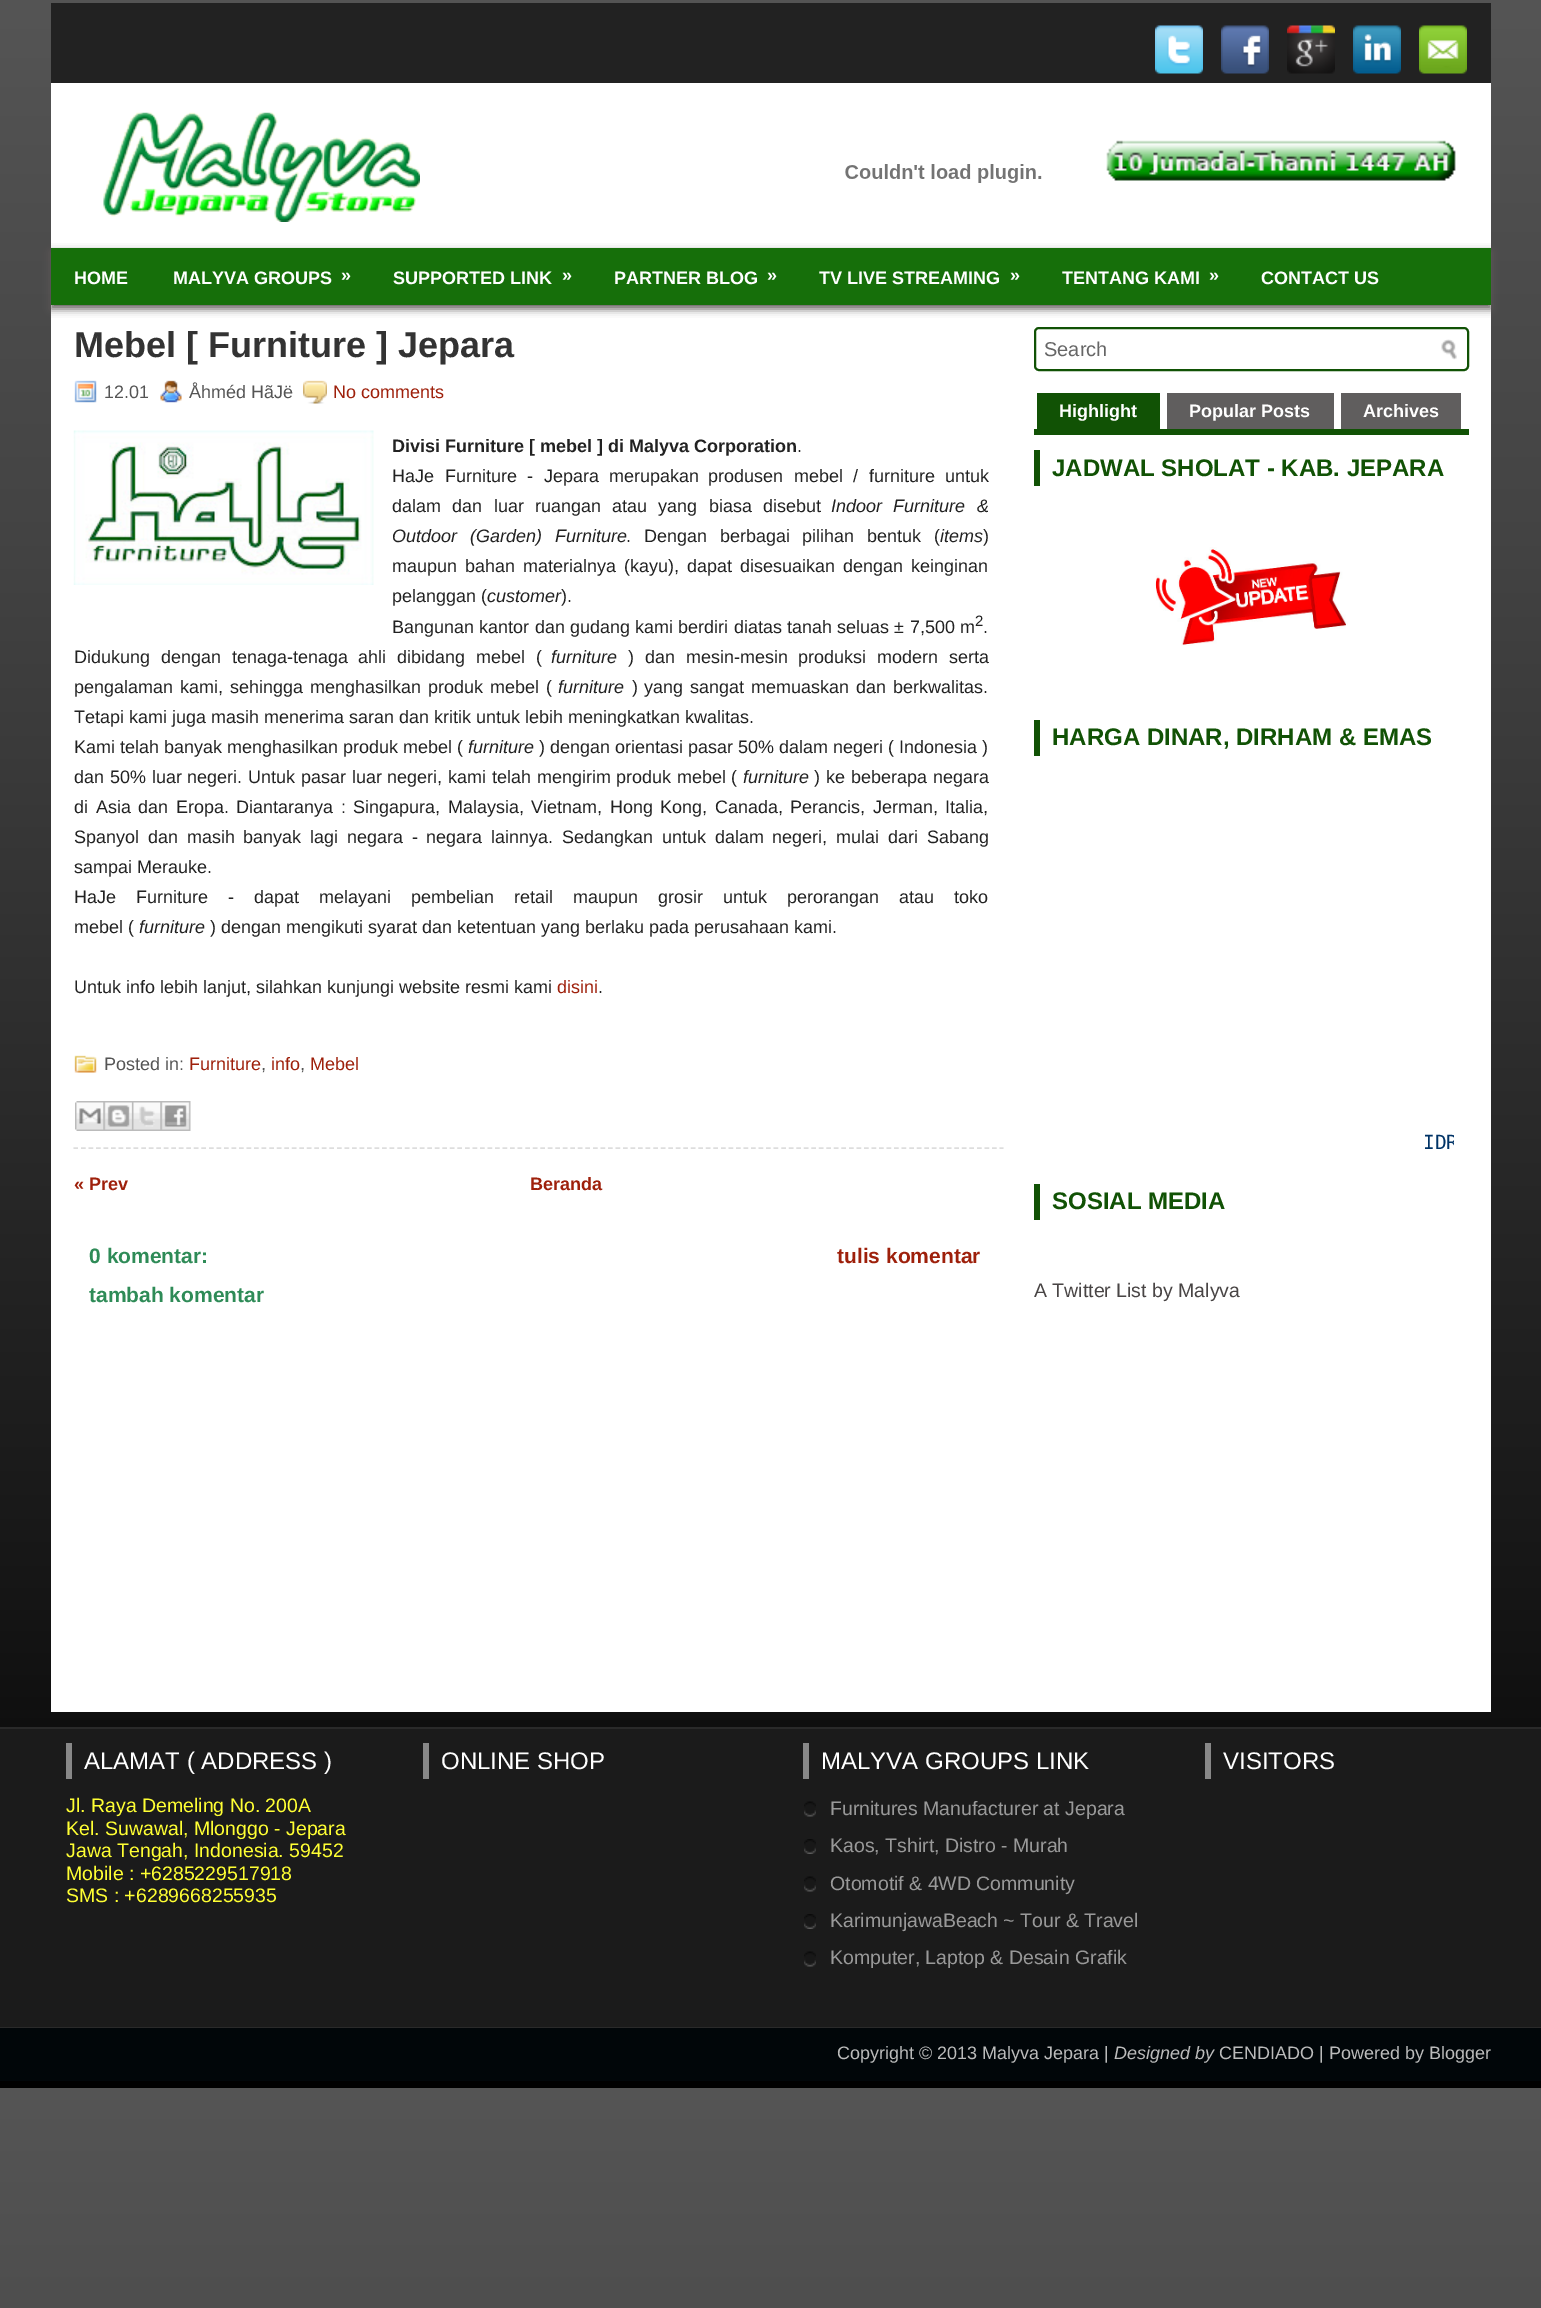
%!PS-Adobe-3.0
%%BoundingBox: 0 0 1541 2308
%%LanguageLevel: 3
%%Pages: 1
%%EndComments
%%BeginProlog
/setink { dup -16 bitshift 255 div exch dup -8 bitshift 255 and 255 div exch 255 and 255 div setrgbcolor } def
/usefont { [ exch dup neg 0 0 3 -1 roll 0 0 ] selectfont } def
/setalpha { dup .setfillconstantalpha .setstrokeconstantalpha } def
/rrect { 5 dict begin { /r /h /w /y /x } { exch def } forall
  x r add y moveto x w add y 2 copy h add r arct x w add y h add x 1 index r arct
  x y h add x y r arct x y 2 copy exch w add exch r arct closepath end } def
/softshadow { 12 dict begin { /a /b /q /h /w /y /x } { exch def } forall gsave /was 0 def
  9 -2 -9 { dup b mul 4 div /e exch def 1 sub .425 mul 2.718 exch exp 1 add a .99 .min exch div /now exch def
    1 1 now sub 1 was sub div sub setalpha /was now def
    w h .min e 2 mul add 0 gt { x e sub y e sub w e 2 mul add h e 2 mul add
      q e add b .6 mul add w h .min 2 div e add .min 0 .max rrect fill } if } for grestore end } def
/drawimage { 5 dict begin { /h /w /y /x /name } { exch def } forall
  gsave x y translate w h scale
  w h 8 [w 0 0 h 0 0] name (r) file false 3 colorimage grestore end } def
%%EndProlog
%%BeginSetup
<< /PageSize [1541 2308] /PageUsesTransparency true >> setpagedevice
%%EndSetup
%%Page: 1 1
0 .pushpdf14devicefilter
0 2308 translate 1 -1 scale
4 setmiterlimit
16#FFFFFF setink
0 0 1541 2308 rectfill
gsave 0 0 moveto 1541 0 lineto 1541 2088 lineto 0 2088 lineto closepath clip newpath
<< /ShadingType 2 /ColorSpace /DeviceRGB /Coords [771 0 771 2088] /Extend [true true] /Function << /FunctionType 3 /Domain [0 1] /Functions [<< /FunctionType 2 /Domain [0 1] /C0 [0.333 0.333 0.333] /C1 [0.267 0.267 0.267] /N 1 >> << /FunctionType 2 /Domain [0 1] /C0 [0.267 0.267 0.267] /C1 [0 0 0] /N 1 >>] /Bounds [0.25] /Encode [0 1 0 1] >> >> shfill grestore
gsave 0 2088 moveto 1541 2088 lineto 1541 2308 lineto 0 2308 lineto closepath clip newpath
<< /ShadingType 2 /ColorSpace /DeviceRGB /Coords [771 2088 771 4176] /Extend [true true] /Function << /FunctionType 3 /Domain [0 1] /Functions [<< /FunctionType 2 /Domain [0 1] /C0 [0.333 0.333 0.333] /C1 [0.267 0.267 0.267] /N 1 >> << /FunctionType 2 /Domain [0 1] /C0 [0.267 0.267 0.267] /C1 [0 0 0] /N 1 >>] /Bounds [0.25] /Encode [0 1 0 1] >> >> shfill grestore
16#222222 setink
51 3 1440 80 rectfill
(img1.raw) 1155 25 48 49 drawimage
(img2.raw) 1221 25 48 49 drawimage
(img3.raw) 1287 25 48 49 drawimage
(img4.raw) 1353 25 48 49 drawimage
(img5.raw) 1419 25 48 49 drawimage
16#FFFFFF setink
51 83 1440 165 rectfill
(img6.raw) 103 112 317 110 drawimage
(img7.raw) 845 164 197 19 drawimage
(img8.raw) 1106 140 350 41 drawimage
51 305 1440 1407 rectfill
16#615B5B setink
51 252 1440 57 0 4 1 softshadow
16#166F0A setink
51 248 1440 57 rectfill
/LiberationSans-Bold 18 usefont
16#FFFFFF setink
[
    [(HOME) 74 284]
    [(MALYVA GROUPS) 173 284]
    [(») 341 281]
    [(SUPPORTED LINK) 393 284]
    [(») 562 281]
    [(PARTNER BLOG) 614 284]
    [(») 767 281]
    [(TV LIVE STREAMING) 819 284]
    [(») 1010 281]
    [(TENTANG KAMI) 1062 284]
    [(») 1209 281]
    [(CONTACT US) 1261 284]
] { aload pop moveto show } forall
16#DDDDDD setink
1.5 setlinewidth
[4.5 3.03] 0 setdash
73.5 1148 moveto 1003.5 1148 lineto stroke
/LiberationSans-Bold 36 usefont
16#333333 setink
74 357 moveto (Mebel [ Furniture ] Jepara) show
(img9.raw) 74 380 23 23 drawimage
/LiberationSans-Regular 18 usefont
16#555555 setink
104 398 moveto (12.01) show
(img10.raw) 160 380 22 23 drawimage
189 398 moveto (Åhméd HãJë) show
(img11.raw) 303 380 24 24 drawimage
16#9E200B setink
333 398 moveto (No comments) show
(img12.raw) 73 430 301 155 drawimage
/LiberationSans-Bold 18 usefont
16#222222 setink
392 452 moveto (Divisi Furniture [ mebel ] di Malyva Corporation) show
/LiberationSans-Regular 18 usefont
797 452 moveto (.) show
392 482 moveto 5.5 0 32 (HaJe Furniture - Jepara merupakan) widthshow
708 482 moveto 5.5 0 32 (produsen mebel / furniture untuk) widthshow
392 512 moveto 6.25 0 32 (dalam dan luar ruangan atau yang biasa disebut) widthshow
/LiberationSans-Italic 18 usefont
831 512 moveto 6.25 0 32 (Indoor Furniture &) widthshow
392 542 moveto 7.75 0 32 (Outdoor \(Garden\) Furniture) widthshow
/LiberationSans-Regular 18 usefont
626 542 moveto 7.75 0 32 (. Dengan berbagai pilihan bentuk \() widthshow
/LiberationSans-Italic 18 usefont
940 542 moveto (items) show
/LiberationSans-Regular 18 usefont
983 542 moveto (\)) show
392 572 moveto 3 0 32 (maupun bahan materialnya \(kayu\), dapat disesuaikan dengan keinginan) widthshow
392 602 moveto (pelanggan \() show
/LiberationSans-Italic 18 usefont
487 602 moveto (customer) show
/LiberationSans-Regular 18 usefont
561 602 moveto (\).) show
392 633 moveto 0.25 0 32 (Bangunan kantor dan gudang kami berdiri diatas tanah seluas ± 7,500 m) widthshow
/LiberationSans-Regular 15 usefont
975 626 moveto (2) show
/LiberationSans-Regular 18 usefont
983 633 moveto (.) show
74 663 moveto 5.75 0 32 (Didukung dengan tenaga-tenaga ahli dibidang mebel \() widthshow
/LiberationSans-Italic 18 usefont
551 663 moveto (furniture) show
/LiberationSans-Regular 18 usefont
628 663 moveto 5.75 0 32 (\) dan mesin-mesin produksi modern serta) widthshow
74 693 moveto 2 0 32 (pengalaman kami, sehingga menghasilkan produk mebel) widthshow
546 693 moveto (\() show
/LiberationSans-Italic 18 usefont
558 693 moveto (furniture) show
/LiberationSans-Regular 18 usefont
632 693 moveto (\)) show
644 693 moveto 2 0 32 (yang sangat memuaskan dan berkwalitas.) widthshow
74 723 moveto (Tetapi kami juga masih menerima saran dan kritik untuk lebih meningkatkan kwalitas.) show
74 753 moveto (Kami telah banyak menghasilkan produk mebel \() show
/LiberationSans-Italic 18 usefont
468 753 moveto (furniture) show
/LiberationSans-Regular 18 usefont
539 753 moveto (\) dengan orientasi pasar 50% dalam negeri \( Indonesia \)) show
74 783 moveto 0.75 0 32 (dan 50% luar negeri. Untuk pasar luar negeri, kami telah mengirim produk mebel) widthshow
731 783 moveto (\() show
/LiberationSans-Italic 18 usefont
743 783 moveto (furniture) show
/LiberationSans-Regular 18 usefont
814 783 moveto (\)) show
826 783 moveto 0.75 0 32 (ke beberapa negara) widthshow
74 813 moveto 2.5 0 32 (di Asia dan Eropa. Diantaranya : Singapura, Malaysia, Vietnam, Hong Kong, Canada, Perancis, Jerman, Italia,) widthshow
74 843 moveto 3.75 0 32 (Spanyol dan masih banyak lagi negara - negara lainnya. Sedangkan untuk dalam negeri, mulai dari Sabang) widthshow
74 873 moveto (sampai Merauke.) show
74 903 moveto 15 0 32 (HaJe Furniture -) widthshow
254 903 moveto 15 0 32 (dapat melayani pembelian retail maupun grosir untuk perorangan atau toko) widthshow
74 933 moveto (mebel \() show
/LiberationSans-Italic 18 usefont
139 933 moveto (furniture) show
/LiberationSans-Regular 18 usefont
210 933 moveto (\) dengan mengikuti syarat dan ketentuan yang berlaku pada perusahaan kami.) show
74 993 moveto (Untuk info lebih lanjut, silahkan kunjungi website resmi kami) show
16#9E200B setink
557 993 moveto (disini) show
16#222222 setink
598 993 moveto (.) show
(img13.raw) 74 1055 23 18 drawimage
16#555555 setink
104 1070 moveto (Posted in:) show
16#9E200B setink
189 1070 moveto (Furniture) show
16#555555 setink
261 1070 moveto (,) show
16#9E200B setink
271 1070 moveto (info) show
16#555555 setink
300 1070 moveto (,) show
16#9E200B setink
310 1070 moveto (Mebel) show
(img14.raw) 75 1101 29 30 drawimage
(img15.raw) 103 1101 29 30 drawimage
(img16.raw) 132 1101 29 30 drawimage
(img17.raw) 160 1101 31 30 drawimage
/LiberationSans-Bold 18 usefont
74 1190 moveto (« Prev) show
530 1190 moveto (Beranda) show
/LiberationSans-Bold 21 usefont
16#2E8B57 setink
89 1263 moveto (0 komentar:) show
16#9E200B setink
837 1263 moveto (tulis komentar) show
16#2E8B57 setink
89 1302 moveto (tambah komentar) show
(img18.raw) 1441 339 16 21 drawimage
16#115205 setink
2 setlinewidth
[] 0 setdash
1035 328 433 42 4 rrect stroke
/LiberationSans-Regular 20 usefont
16#666666 setink
1044 356 moveto (Search) show
16#115205 setink
1034 429 435 6 rectfill
1037 393 123 36 rectfill
/LiberationSans-Bold 18 usefont
16#FFFFFF setink
1059 417 moveto (Highlight) show
16#605E5E setink
1167 393 167 36 rectfill
16#FFFFFF setink
1189 417 moveto (Popular Posts) show
16#605E5E setink
1341 393 120 36 rectfill
16#FFFFFF setink
1363 417 moveto (Archives) show
16#115205 setink
1034 450 6 36 rectfill
/LiberationSans-Bold 24 usefont
1052 476 moveto (JADWAL SHOLAT - KAB. JEPARA) show
(img19.raw) 1155 547 193 99 drawimage
1034 720 6 36 rectfill
1052 745 moveto (HARGA DINAR, DIRHAM & EMAS) show
gsave
1049 1125 405 32 rectclip
/DejaVuSansMono-Regular 19.5 usefont
16#003366 setink
1423 1149 moveto (IDR) show
grestore
1034 1184 6 36 rectfill
1052 1209 moveto (SOSIAL MEDIA) show
/LiberationSans-Regular 19.5 usefont
16#494545 setink
1034 1297 moveto (A Twitter List by Malyva) show
[
    [0 1729 1541 298 16#1B1B1B]
    [0 1727 1541 2 16#2A2A2A]
    [0 2027 1541 1 16#2A2A2A]
    [66 1743 6 36 16#888888]
] { aload pop setink rectfill } forall
/LiberationSans-Regular 24 usefont
16#FFFFFF setink
84 1769 moveto (ALAMAT \( ADDRESS \)) show
/LiberationSans-Regular 19.5 usefont
16#FFFF33 setink
[
    [(Jl. Raya Demeling No. 200A) 66 1812]
    [(Kel. Suwawal, Mlonggo - Jepara) 66 1835]
    [(Jawa Tengah, Indonesia. 59452) 66 1857]
    [(Mobile : +6285229517918) 66 1880]
    [(SMS : +6289668255935) 66 1902]
] { aload pop moveto show } forall
16#888888 setink
423 1743 6 36 rectfill
/LiberationSans-Regular 24 usefont
16#FFFFFF setink
441 1769 moveto (ONLINE SHOP) show
16#888888 setink
803 1743 6 36 rectfill
16#FFFFFF setink
821 1769 moveto (MALYVA GROUPS LINK) show
(img20.raw) 804 1801 12 16 drawimage
/LiberationSans-Regular 19.5 usefont
16#999999 setink
830 1815 moveto (Furnitures Manufacturer at Jepara) show
(img21.raw) 804 1839 12 15 drawimage
830 1852 moveto (Kaos, Tshirt, Distro - Murah) show
(img20.raw) 804 1876 12 16 drawimage
830 1890 moveto (Otomotif & 4WD Community) show
(img21.raw) 804 1914 12 15 drawimage
830 1927 moveto (KarimunjawaBeach ~ Tour & Travel) show
(img20.raw) 804 1951 12 16 drawimage
830 1964 moveto (Komputer, Laptop & Desain Grafik) show
16#888888 setink
1205 1743 6 36 rectfill
/LiberationSans-Regular 24 usefont
16#FFFFFF setink
1223 1769 moveto (VISITORS) show
16#010609 setink
0 2028 1541 53 rectfill
/LiberationSans-Regular 18 usefont
16#BBBBBB setink
837 2059 moveto (Copyright © 2013 Malyva Jepara |) show
/LiberationSans-Italic 18 usefont
1114 2059 moveto (Designed by) show
/LiberationSans-Regular 18 usefont
1219 2059 moveto (CENDIADO | Powered by Blogger) show
.poppdf14devicefilter showpage
%%EOF
